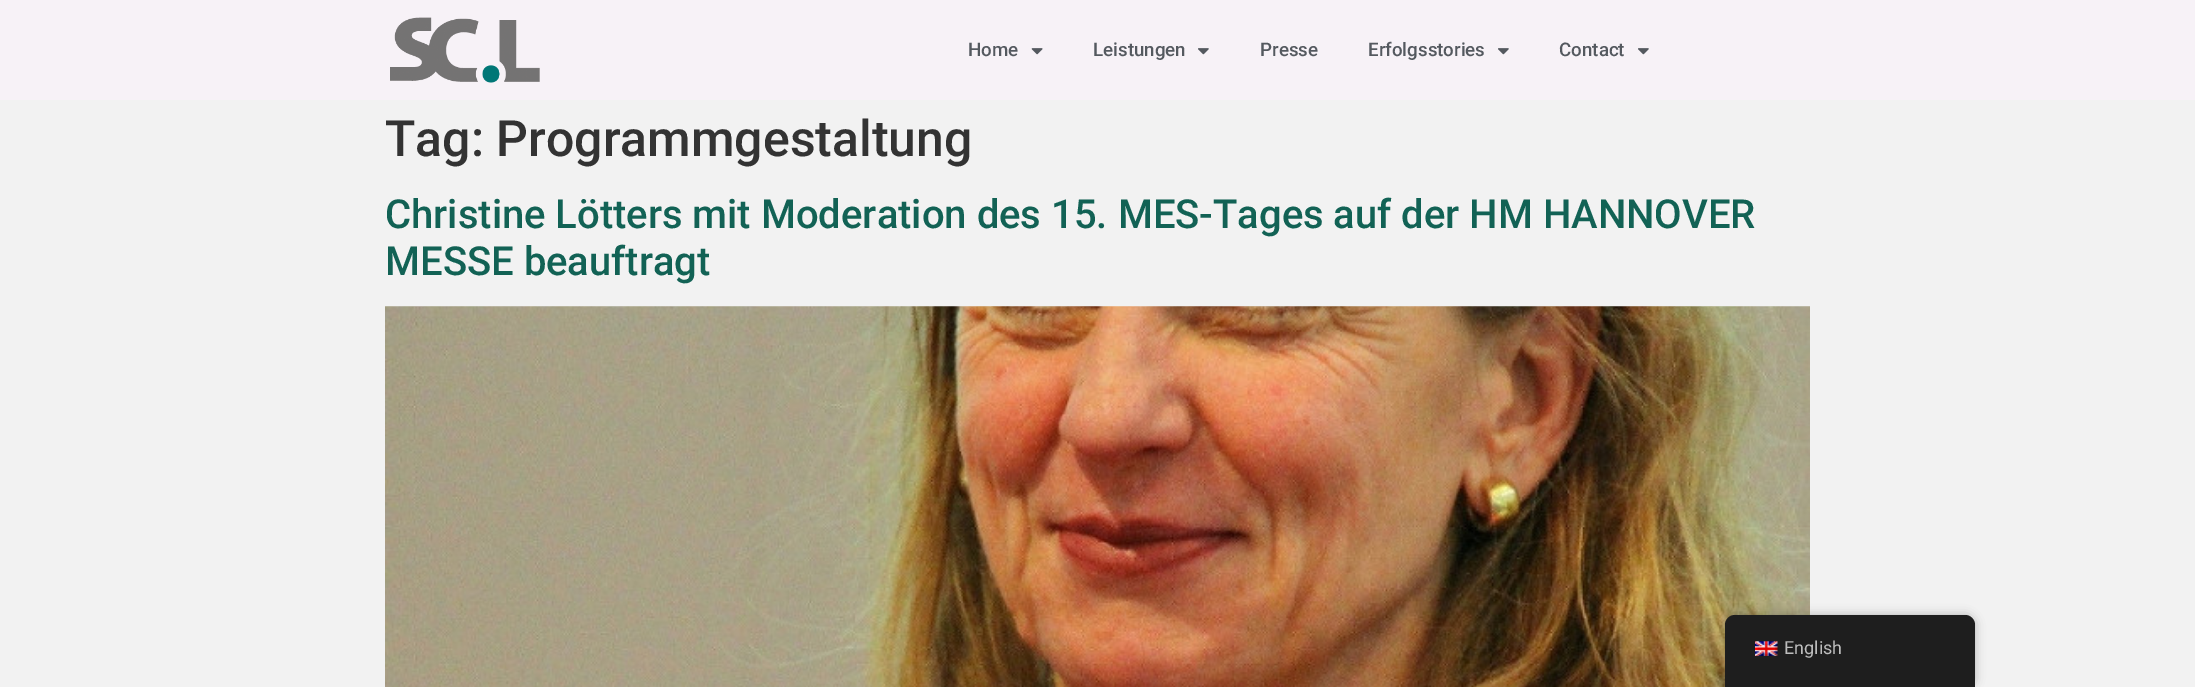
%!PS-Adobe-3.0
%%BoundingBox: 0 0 2195 687
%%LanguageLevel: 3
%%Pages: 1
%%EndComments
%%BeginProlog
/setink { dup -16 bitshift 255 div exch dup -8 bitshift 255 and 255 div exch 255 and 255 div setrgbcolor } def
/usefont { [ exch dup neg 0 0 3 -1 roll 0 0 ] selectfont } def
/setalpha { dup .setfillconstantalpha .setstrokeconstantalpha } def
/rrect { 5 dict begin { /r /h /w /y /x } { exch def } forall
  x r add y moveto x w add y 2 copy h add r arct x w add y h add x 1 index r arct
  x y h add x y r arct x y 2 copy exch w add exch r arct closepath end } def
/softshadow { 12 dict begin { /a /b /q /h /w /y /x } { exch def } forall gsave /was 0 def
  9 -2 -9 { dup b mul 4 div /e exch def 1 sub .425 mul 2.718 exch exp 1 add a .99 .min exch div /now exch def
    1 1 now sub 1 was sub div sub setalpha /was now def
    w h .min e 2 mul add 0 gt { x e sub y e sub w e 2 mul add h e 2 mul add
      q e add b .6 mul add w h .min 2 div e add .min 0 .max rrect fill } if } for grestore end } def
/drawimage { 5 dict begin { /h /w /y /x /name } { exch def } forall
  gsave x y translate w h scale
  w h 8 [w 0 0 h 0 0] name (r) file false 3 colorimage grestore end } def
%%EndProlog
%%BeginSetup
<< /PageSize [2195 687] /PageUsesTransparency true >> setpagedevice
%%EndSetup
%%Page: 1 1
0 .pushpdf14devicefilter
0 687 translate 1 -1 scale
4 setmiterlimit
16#F2F2F2 setink
0 0 2195 687 rectfill
16#F7F2F7 setink
0 0 2195 100 rectfill
(img1.raw) 390 17 150 66 drawimage
/Roboto-Medium 18.75 usefont
16#54595F setink
968 56 moveto (Home) show
(img2.raw) 1031 48 12 7 drawimage
1093 56 moveto (Leistungen) show
(img3.raw) 1198 48 11 7 drawimage
1260 56 moveto (Presse) show
1368 56 moveto (Erfolgsstories) show
(img3.raw) 1498 48 11 7 drawimage
1559 56 moveto (Contact) show
(img3.raw) 1638 48 11 7 drawimage
/Roboto-Medium 50 usefont
16#333333 setink
385 156 moveto (Tag: Programmgestaltung) show
/Roboto-Medium 40 usefont
16#126255 setink
385 228 moveto (Christine Lötters mit Moderation des 15. MES-Tages auf der HM HANNOVER) show
385 275 moveto (MESSE beauftragt) show
(img4.raw) 385 306 1425 381 drawimage
16#000000 setink
1725 615 250 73 10 5 0.25 softshadow
16#1E1E1E setink
1735 615 moveto 1965 615 lineto 1970.5 615 1975 619.5 1975 625 curveto 1975 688 lineto 1725 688 lineto 1725 625 lineto 1725 619.5 1729.5 615 1735 615 curveto closepath fill
(img5.raw) 1755 641 23 15 drawimage
/Roboto-Regular 18 usefont
16#BDBDBD setink
1784 654 moveto (English) show
.poppdf14devicefilter showpage
%%EOF
